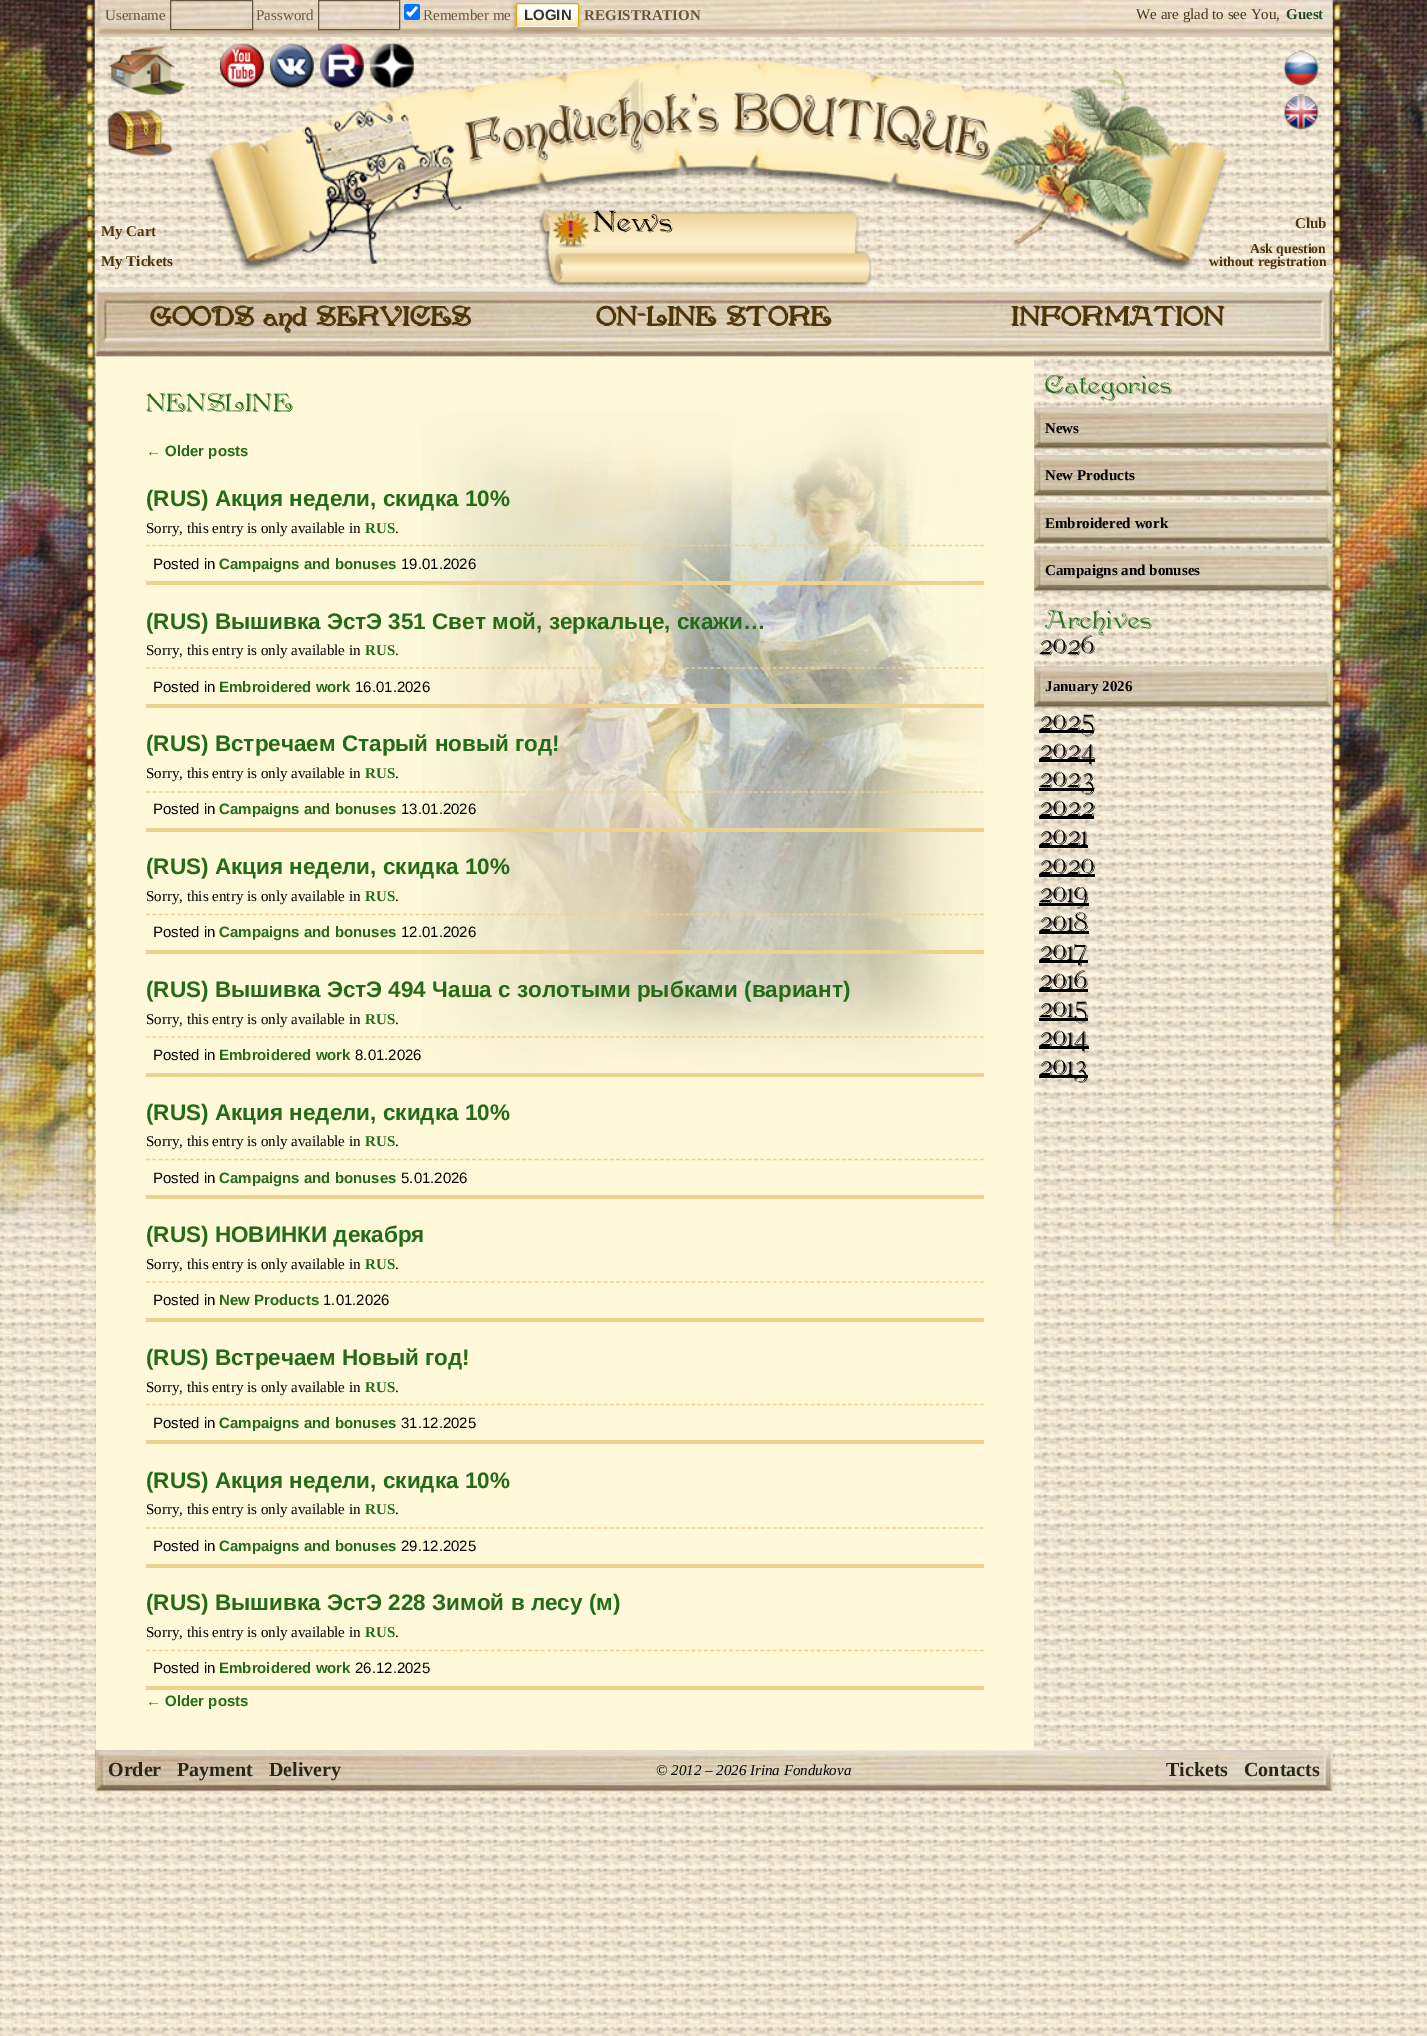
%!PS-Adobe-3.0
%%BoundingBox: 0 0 1427 2036
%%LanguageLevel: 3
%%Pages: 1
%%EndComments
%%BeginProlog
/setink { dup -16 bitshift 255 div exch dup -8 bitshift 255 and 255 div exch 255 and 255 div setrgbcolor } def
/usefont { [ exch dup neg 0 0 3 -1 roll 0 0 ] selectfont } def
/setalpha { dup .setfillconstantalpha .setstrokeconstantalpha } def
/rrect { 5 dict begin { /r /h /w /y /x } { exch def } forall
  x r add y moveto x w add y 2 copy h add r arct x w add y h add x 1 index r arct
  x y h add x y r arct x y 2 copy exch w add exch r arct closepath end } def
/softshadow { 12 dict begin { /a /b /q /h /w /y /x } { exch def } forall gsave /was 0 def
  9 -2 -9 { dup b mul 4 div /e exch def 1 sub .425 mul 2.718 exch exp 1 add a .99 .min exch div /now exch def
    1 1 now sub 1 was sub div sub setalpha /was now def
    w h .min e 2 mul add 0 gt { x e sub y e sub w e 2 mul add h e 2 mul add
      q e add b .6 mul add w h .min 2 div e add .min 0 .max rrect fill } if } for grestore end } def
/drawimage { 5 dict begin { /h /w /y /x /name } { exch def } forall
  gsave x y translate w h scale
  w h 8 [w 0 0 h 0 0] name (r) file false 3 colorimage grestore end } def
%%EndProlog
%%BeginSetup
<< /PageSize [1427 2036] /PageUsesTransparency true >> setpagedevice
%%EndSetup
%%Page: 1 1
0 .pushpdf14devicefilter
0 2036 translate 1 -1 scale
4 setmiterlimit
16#FFFFFF setink
0 0 1427 2036 rectfill
(img1.raw) 0 0 1427 2036 drawimage
(img2.raw) 0 0 96 1250 drawimage
(img25.raw) 1331 0 96 1250 drawimage
(img3.raw) 95 0 1238 35 drawimage
16#D9CDB3 setink
95 35 1238 2 rectfill
/LiberationSerif-Regular 15 usefont
16#65573D setink
105 20 moveto (Username) show
170.5 0.5 82 29 rectstroke
256 20 moveto (Password) show
318.5 0.5 81 29 rectstroke
16#0075FF setink
404 4 16 16 2.5 rrect fill
16#FFFFFF setink
2.6 setlinewidth
407 12 moveto 410 15 lineto 417 7 lineto stroke
16#65573D setink
423 20 moveto (Remember me) show
16#000000 setink
515 4 63 25 2.5 2.5 0.3 softshadow
gsave 516 4 moveto 579 4 lineto 579 26 lineto 516 26 lineto closepath clip newpath
<< /ShadingType 2 /ColorSpace /DeviceRGB /Coords [518 3.8 518 26] /Extend [true true] /Function << /FunctionType 3 /Domain [0 1] /Functions [<< /FunctionType 2 /Domain [0 1] /C0 [1 1 1] /C1 [1 1 1] /N 1 >> << /FunctionType 2 /Domain [0 1] /C0 [1 1 1] /C1 [0.988 0.89 0.69] /N 1 >>] /Bounds [0.5] /Encode [0 1 0 1] >> >> shfill grestore
gsave
516 3 63 25 2.5 rrect clip newpath
gsave 516 26 moveto 579 26 lineto 579 28 lineto 516 28 lineto closepath clip newpath
<< /ShadingType 2 /ColorSpace /DeviceRGB /Coords [518 26 518 49] /Extend [true true] /Function << /FunctionType 3 /Domain [0 1] /Functions [<< /FunctionType 2 /Domain [0 1] /C0 [1 1 1] /C1 [1 1 1] /N 1 >> << /FunctionType 2 /Domain [0 1] /C0 [1 1 1] /C1 [0.988 0.89 0.69] /N 1 >>] /Bounds [0.5] /Encode [0 1 0 1] >> >> shfill grestore
grestore
16#E8AA00 setink
1 setlinewidth
516.5 3.5 62 24 2 rrect stroke
/LiberationSans-Bold 15 usefont
16#333333 setink
524 20 moveto (LOGIN) show
/LiberationSerif-Bold 15 usefont
16#65573D setink
584 20 moveto (REGISTRATION) show
/LiberationSerif-Regular 15 usefont
16#473817 setink
1136 19 moveto (We are glad to see You,) show
/LiberationSerif-Bold 15 usefont
16#294920 setink
1286 19 moveto (Guest) show
(img4.raw) 95 37 1238 320 drawimage
(img5.raw) 205 58 1022 214 drawimage
(img6.raw) 108 45 77 51 drawimage
(img7.raw) 220 43 44 45 drawimage
(img8.raw) 270 43 44 45 drawimage
(img9.raw) 320 43 44 45 drawimage
(img10.raw) 370 43 44 45 drawimage
(img11.raw) 107 108 66 50 drawimage
(img12.raw) 1283 50 36 37 drawimage
(img13.raw) 1283 93 36 37 drawimage
(img14.raw) 538 208 322 44 drawimage
(img17.raw) 95 287 1238 70 drawimage
(img16.raw) 542 246 330 42 drawimage
(img15.raw) 552 211 38 37 drawimage
/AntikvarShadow-Regular 29 usefont
16#000000 setink
593 231 moveto (News) show
/LiberationSerif-Bold 15 usefont
16#4D3509 setink
[
    [(My Cart) 101 236]
    [(My Tickets) 101 266]
    [(Club) 1295 228]
] { aload pop moveto show } forall
/LiberationSerif-Bold 13.75 usefont
1250 253 moveto (Ask question) show
1209 266 moveto (without registration) show
/AntikvarShadow-Bold 26.25 usefont
[
    [(GOODS and SERVICES) 150 325]
    [(ON-LINE STORE) 596 325]
    [(INFORMATION) 1011 325]
] { aload pop moveto show } forall
16#FFF9D9 setink
96 357 938 1393 rectfill
(img18.raw) 422 411 562 661 drawimage
/AntikvarShadow-Regular 25 usefont
16#236B17 setink
146 411 moveto (NENSLINE) show
/LiberationSans-Bold 15 usefont
146 456 moveto (← Older posts) show
16#EED18C setink
146 581 838 4 rectfill
/LiberationSans-Bold 22.5 usefont
16#236B17 setink
146 506 moveto (\(RUS\) Акция недели, скидка 10%) show
/LiberationSerif-Regular 15 usefont
16#000000 setink
146 533 moveto (Sorry, this entry is only available in) show
/LiberationSerif-Bold 15 usefont
16#236B17 setink
365 533 moveto (RUS) show
/LiberationSerif-Regular 15 usefont
16#000000 setink
395 533 moveto (.) show
16#EED18C setink
1.2 setlinewidth
[3.75 2.52] 0 setdash
146 545.5 moveto 984 545.5 lineto stroke
/LiberationSans-Regular 15 usefont
16#000000 setink
153 569 moveto (Posted in) show
/LiberationSans-Bold 15 usefont
16#236B17 setink
219 569 moveto (Campaigns and bonuses) show
/LiberationSans-Regular 15 usefont
16#000000 setink
401 569 moveto (19.01.2026) show
16#EED18C setink
146 704 838 4 rectfill
/LiberationSans-Bold 22.5 usefont
16#236B17 setink
146 629 moveto (\(RUS\) Вышивка ЭстЭ 351 Свет мой, зеркальце, скажи…) show
/LiberationSerif-Regular 15 usefont
16#000000 setink
146 655 moveto (Sorry, this entry is only available in) show
/LiberationSerif-Bold 15 usefont
16#236B17 setink
365 655 moveto (RUS) show
/LiberationSerif-Regular 15 usefont
16#000000 setink
395 655 moveto (.) show
16#EED18C setink
146 668 moveto 984 668 lineto stroke
/LiberationSans-Regular 15 usefont
16#000000 setink
153 692 moveto (Posted in) show
/LiberationSans-Bold 15 usefont
16#236B17 setink
219 692 moveto (Embroidered work) show
/LiberationSans-Regular 15 usefont
16#000000 setink
355 692 moveto (16.01.2026) show
16#EED18C setink
146 828 838 4 rectfill
/LiberationSans-Bold 22.5 usefont
16#236B17 setink
146 751 moveto (\(RUS\) Встречаем Старый новый год!) show
/LiberationSerif-Regular 15 usefont
16#000000 setink
146 778 moveto (Sorry, this entry is only available in) show
/LiberationSerif-Bold 15 usefont
16#236B17 setink
365 778 moveto (RUS) show
/LiberationSerif-Regular 15 usefont
16#000000 setink
395 778 moveto (.) show
16#EED18C setink
146 792 moveto 984 792 lineto stroke
/LiberationSans-Regular 15 usefont
16#000000 setink
153 814 moveto (Posted in) show
/LiberationSans-Bold 15 usefont
16#236B17 setink
219 814 moveto (Campaigns and bonuses) show
/LiberationSans-Regular 15 usefont
16#000000 setink
401 814 moveto (13.01.2026) show
16#EED18C setink
146 950 838 4 rectfill
/LiberationSans-Bold 22.5 usefont
16#236B17 setink
146 874 moveto (\(RUS\) Акция недели, скидка 10%) show
/LiberationSerif-Regular 15 usefont
16#000000 setink
146 901 moveto (Sorry, this entry is only available in) show
/LiberationSerif-Bold 15 usefont
16#236B17 setink
365 901 moveto (RUS) show
/LiberationSerif-Regular 15 usefont
16#000000 setink
395 901 moveto (.) show
16#EED18C setink
146 914.5 moveto 984 914.5 lineto stroke
/LiberationSans-Regular 15 usefont
16#000000 setink
153 937 moveto (Posted in) show
/LiberationSans-Bold 15 usefont
16#236B17 setink
219 937 moveto (Campaigns and bonuses) show
/LiberationSans-Regular 15 usefont
16#000000 setink
401 937 moveto (12.01.2026) show
16#EED18C setink
146 1073 838 4 rectfill
/LiberationSans-Bold 22.5 usefont
16#236B17 setink
146 997 moveto (\(RUS\) Вышивка ЭстЭ 494 Чаша с золотыми рыбками \(вариант\)) show
/LiberationSerif-Regular 15 usefont
16#000000 setink
146 1024 moveto (Sorry, this entry is only available in) show
/LiberationSerif-Bold 15 usefont
16#236B17 setink
365 1024 moveto (RUS) show
/LiberationSerif-Regular 15 usefont
16#000000 setink
395 1024 moveto (.) show
16#EED18C setink
146 1037 moveto 984 1037 lineto stroke
/LiberationSans-Regular 15 usefont
16#000000 setink
153 1060 moveto (Posted in) show
/LiberationSans-Bold 15 usefont
16#236B17 setink
219 1060 moveto (Embroidered work) show
/LiberationSans-Regular 15 usefont
16#000000 setink
355 1060 moveto (8.01.2026) show
16#EED18C setink
146 1195 838 4 rectfill
/LiberationSans-Bold 22.5 usefont
16#236B17 setink
146 1120 moveto (\(RUS\) Акция недели, скидка 10%) show
/LiberationSerif-Regular 15 usefont
16#000000 setink
146 1146 moveto (Sorry, this entry is only available in) show
/LiberationSerif-Bold 15 usefont
16#236B17 setink
365 1146 moveto (RUS) show
/LiberationSerif-Regular 15 usefont
16#000000 setink
395 1146 moveto (.) show
16#EED18C setink
146 1159.5 moveto 984 1159.5 lineto stroke
/LiberationSans-Regular 15 usefont
16#000000 setink
153 1183 moveto (Posted in) show
/LiberationSans-Bold 15 usefont
16#236B17 setink
219 1183 moveto (Campaigns and bonuses) show
/LiberationSans-Regular 15 usefont
16#000000 setink
401 1183 moveto (5.01.2026) show
16#EED18C setink
146 1318 838 4 rectfill
/LiberationSans-Bold 22.5 usefont
16#236B17 setink
146 1242 moveto (\(RUS\) НОВИНКИ декабря) show
/LiberationSerif-Regular 15 usefont
16#000000 setink
146 1269 moveto (Sorry, this entry is only available in) show
/LiberationSerif-Bold 15 usefont
16#236B17 setink
365 1269 moveto (RUS) show
/LiberationSerif-Regular 15 usefont
16#000000 setink
395 1269 moveto (.) show
16#EED18C setink
146 1282 moveto 984 1282 lineto stroke
/LiberationSans-Regular 15 usefont
16#000000 setink
153 1305 moveto (Posted in) show
/LiberationSans-Bold 15 usefont
16#236B17 setink
219 1305 moveto (New Products) show
/LiberationSans-Regular 15 usefont
16#000000 setink
323 1305 moveto (1.01.2026) show
16#EED18C setink
146 1440 838 4 rectfill
/LiberationSans-Bold 22.5 usefont
16#236B17 setink
146 1365 moveto (\(RUS\) Встречаем Новый год!) show
/LiberationSerif-Regular 15 usefont
16#000000 setink
146 1392 moveto (Sorry, this entry is only available in) show
/LiberationSerif-Bold 15 usefont
16#236B17 setink
365 1392 moveto (RUS) show
/LiberationSerif-Regular 15 usefont
16#000000 setink
395 1392 moveto (.) show
16#EED18C setink
146 1404.5 moveto 984 1404.5 lineto stroke
/LiberationSans-Regular 15 usefont
16#000000 setink
153 1428 moveto (Posted in) show
/LiberationSans-Bold 15 usefont
16#236B17 setink
219 1428 moveto (Campaigns and bonuses) show
/LiberationSans-Regular 15 usefont
16#000000 setink
401 1428 moveto (31.12.2025) show
16#EED18C setink
146 1564 838 4 rectfill
/LiberationSans-Bold 22.5 usefont
16#236B17 setink
146 1488 moveto (\(RUS\) Акция недели, скидка 10%) show
/LiberationSerif-Regular 15 usefont
16#000000 setink
146 1514 moveto (Sorry, this entry is only available in) show
/LiberationSerif-Bold 15 usefont
16#236B17 setink
365 1514 moveto (RUS) show
/LiberationSerif-Regular 15 usefont
16#000000 setink
395 1514 moveto (.) show
16#EED18C setink
146 1528 moveto 984 1528 lineto stroke
/LiberationSans-Regular 15 usefont
16#000000 setink
153 1551 moveto (Posted in) show
/LiberationSans-Bold 15 usefont
16#236B17 setink
219 1551 moveto (Campaigns and bonuses) show
/LiberationSans-Regular 15 usefont
16#000000 setink
401 1551 moveto (29.12.2025) show
16#EED18C setink
146 1686 838 4 rectfill
/LiberationSans-Bold 22.5 usefont
16#236B17 setink
146 1610 moveto (\(RUS\) Вышивка ЭстЭ 228 Зимой в лесу \(м\)) show
/LiberationSerif-Regular 15 usefont
16#000000 setink
146 1637 moveto (Sorry, this entry is only available in) show
/LiberationSerif-Bold 15 usefont
16#236B17 setink
365 1637 moveto (RUS) show
/LiberationSerif-Regular 15 usefont
16#000000 setink
395 1637 moveto (.) show
16#EED18C setink
146 1650.5 moveto 984 1650.5 lineto stroke
/LiberationSans-Regular 15 usefont
16#000000 setink
153 1673 moveto (Posted in) show
/LiberationSans-Bold 15 usefont
16#236B17 setink
219 1673 moveto (Embroidered work) show
/LiberationSans-Regular 15 usefont
16#000000 setink
355 1673 moveto (26.12.2025) show
/LiberationSans-Bold 15 usefont
16#236B17 setink
146 1706 moveto (← Older posts) show
/AntikvarShadow-Regular 25 usefont
1045 393 moveto (Categories) show
(img19.raw) 1034 407 299 42 drawimage
/LiberationSerif-Bold 15 usefont
16#000000 setink
1045 433 moveto (News) show
(img20.raw) 1034 455 299 42 drawimage
1045 480 moveto (New Products) show
(img21.raw) 1034 502 299 42 drawimage
1045 528 moveto (Embroidered work) show
(img22.raw) 1034 550 299 42 drawimage
1045 575 moveto (Campaigns and bonuses) show
/AntikvarShadow-Regular 25 usefont
16#236B17 setink
1045 628 moveto (Archives) show
16#000000 setink
1039 653 moveto (2026) show
(img23.raw) 1034 666 299 42 drawimage
/LiberationSerif-Bold 15 usefont
1045 691 moveto (January 2026) show
1039 730 55 3 rectfill
/AntikvarShadow-Regular 25 usefont
1039 729 moveto (2025) show
1039 759 56 3 rectfill
1039 758 moveto (2024) show
1039 788 55 3 rectfill
1039 786 moveto (2023) show
1039 816 55 3 rectfill
1039 815 moveto (2022) show
1039 845 49 3 rectfill
1039 844 moveto (2021) show
1039 874 56 3 rectfill
1039 873 moveto (2020) show
1039 903 50 3 rectfill
1039 901 moveto (2019) show
1039 931 50 3 rectfill
1039 930 moveto (2018) show
1039 960 49 3 rectfill
1039 959 moveto (2017) show
1039 989 49 3 rectfill
1039 988 moveto (2016) show
1039 1018 49 3 rectfill
1039 1016 moveto (2015) show
1039 1046 50 3 rectfill
1039 1045 moveto (2014) show
1039 1075 49 3 rectfill
1039 1074 moveto (2013) show
(img24.raw) 95 1750 1238 42 drawimage
/LiberationSerif-Bold 20 usefont
16#2A2718 setink
[
    [(Order) 108 1776]
    [(Payment) 177 1776]
    [(Delivery) 269 1776]
] { aload pop moveto show } forall
/LiberationSerif-Italic 15 usefont
16#000000 setink
656 1775 moveto (© 2012 – 2026 Irina Fondukova) show
/LiberationSerif-Bold 20 usefont
16#2A2718 setink
1166 1776 moveto (Tickets) show
1244 1776 moveto (Contacts) show
.poppdf14devicefilter showpage
%%EOF
